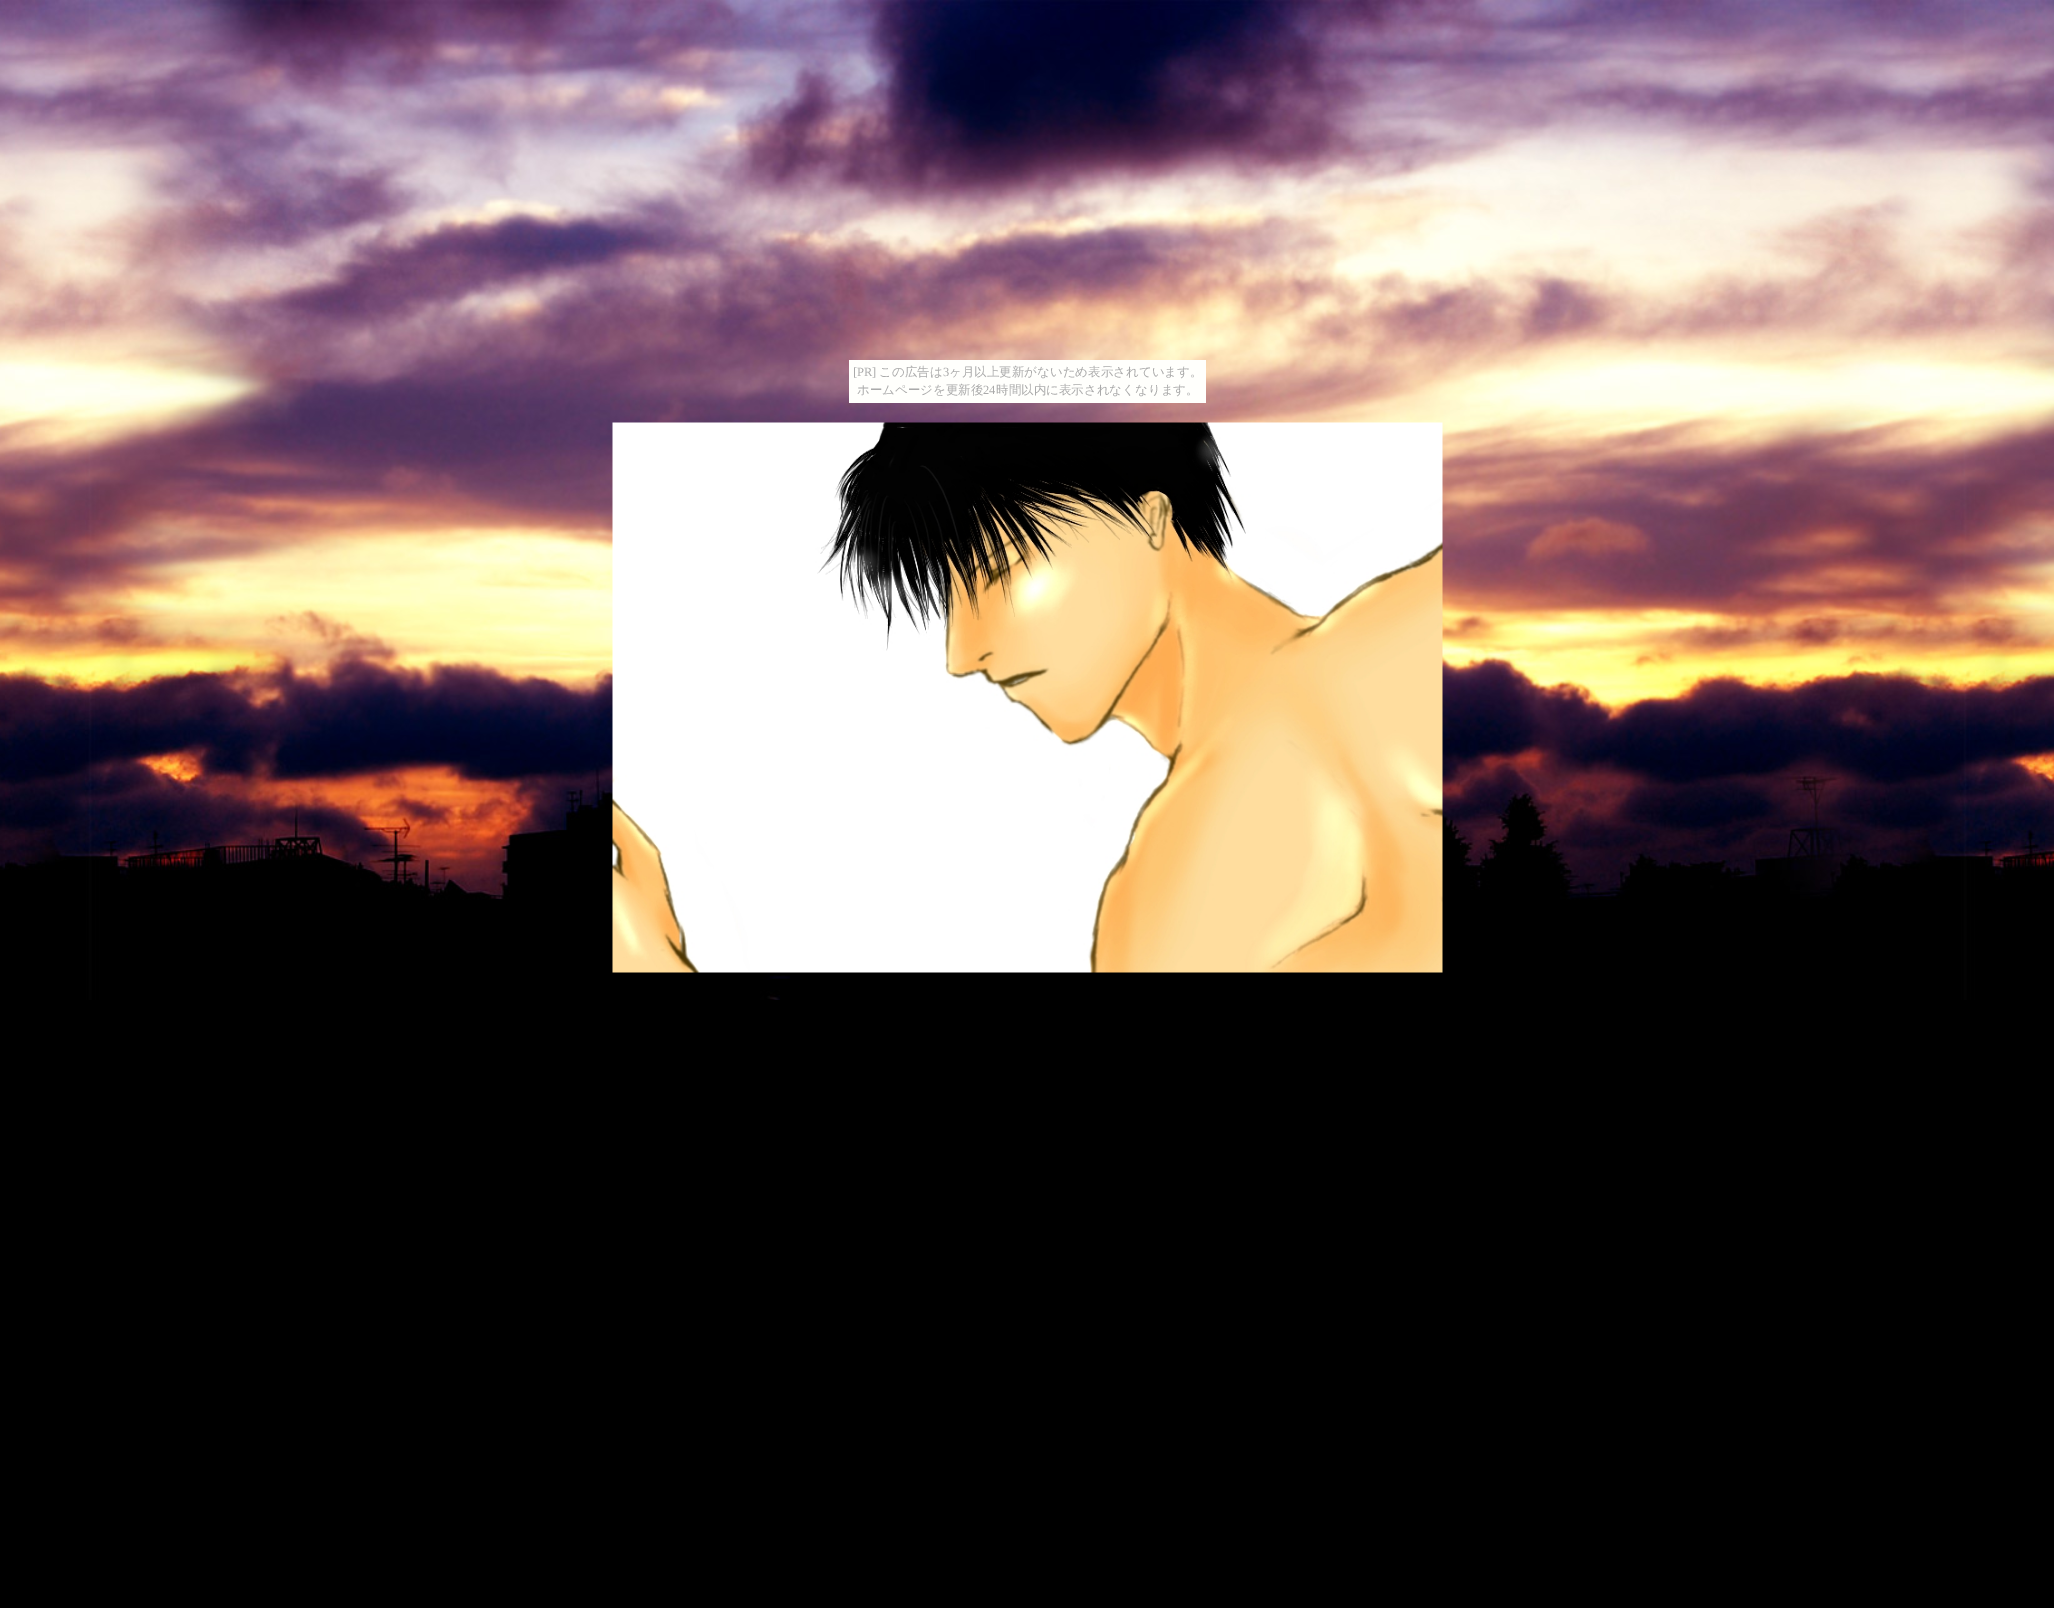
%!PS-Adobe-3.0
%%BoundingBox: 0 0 2054 1608
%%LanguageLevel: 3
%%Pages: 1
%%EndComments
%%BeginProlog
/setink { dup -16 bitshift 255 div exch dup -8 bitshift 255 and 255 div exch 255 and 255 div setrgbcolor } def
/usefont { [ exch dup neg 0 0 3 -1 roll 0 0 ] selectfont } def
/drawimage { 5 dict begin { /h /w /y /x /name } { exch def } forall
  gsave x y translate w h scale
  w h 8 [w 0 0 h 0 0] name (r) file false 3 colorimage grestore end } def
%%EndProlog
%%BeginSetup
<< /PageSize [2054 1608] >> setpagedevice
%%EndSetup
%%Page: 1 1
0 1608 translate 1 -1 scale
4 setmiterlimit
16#000000 setink
0 0 2054 1608 rectfill
(img1.raw) 0 0 2054 1000 drawimage
16#FFFFFC setink
849 360 357 43 rectfill
/LiberationSerif-Regular 12.5 usefont
16#AAAAAA setink
853 376 moveto ([PR]) show
/WenQuanYiZenHei-Medium 12.5 usefont
879 376 moveto (この広告は) show
/LiberationSerif-Regular 12.5 usefont
943 376 moveto (3) show
/WenQuanYiZenHei-Medium 12.5 usefont
949 376 moveto (ヶ月以上更新がないため表示されています。) show
857 394 moveto (ホームページを更新後) show
/LiberationSerif-Regular 12.5 usefont
983 394 moveto (24) show
/WenQuanYiZenHei-Medium 12.5 usefont
996 394 moveto (時間以内に表示されなくなります。) show
(img2.raw) 612 422 831 551 drawimage
showpage
%%EOF
